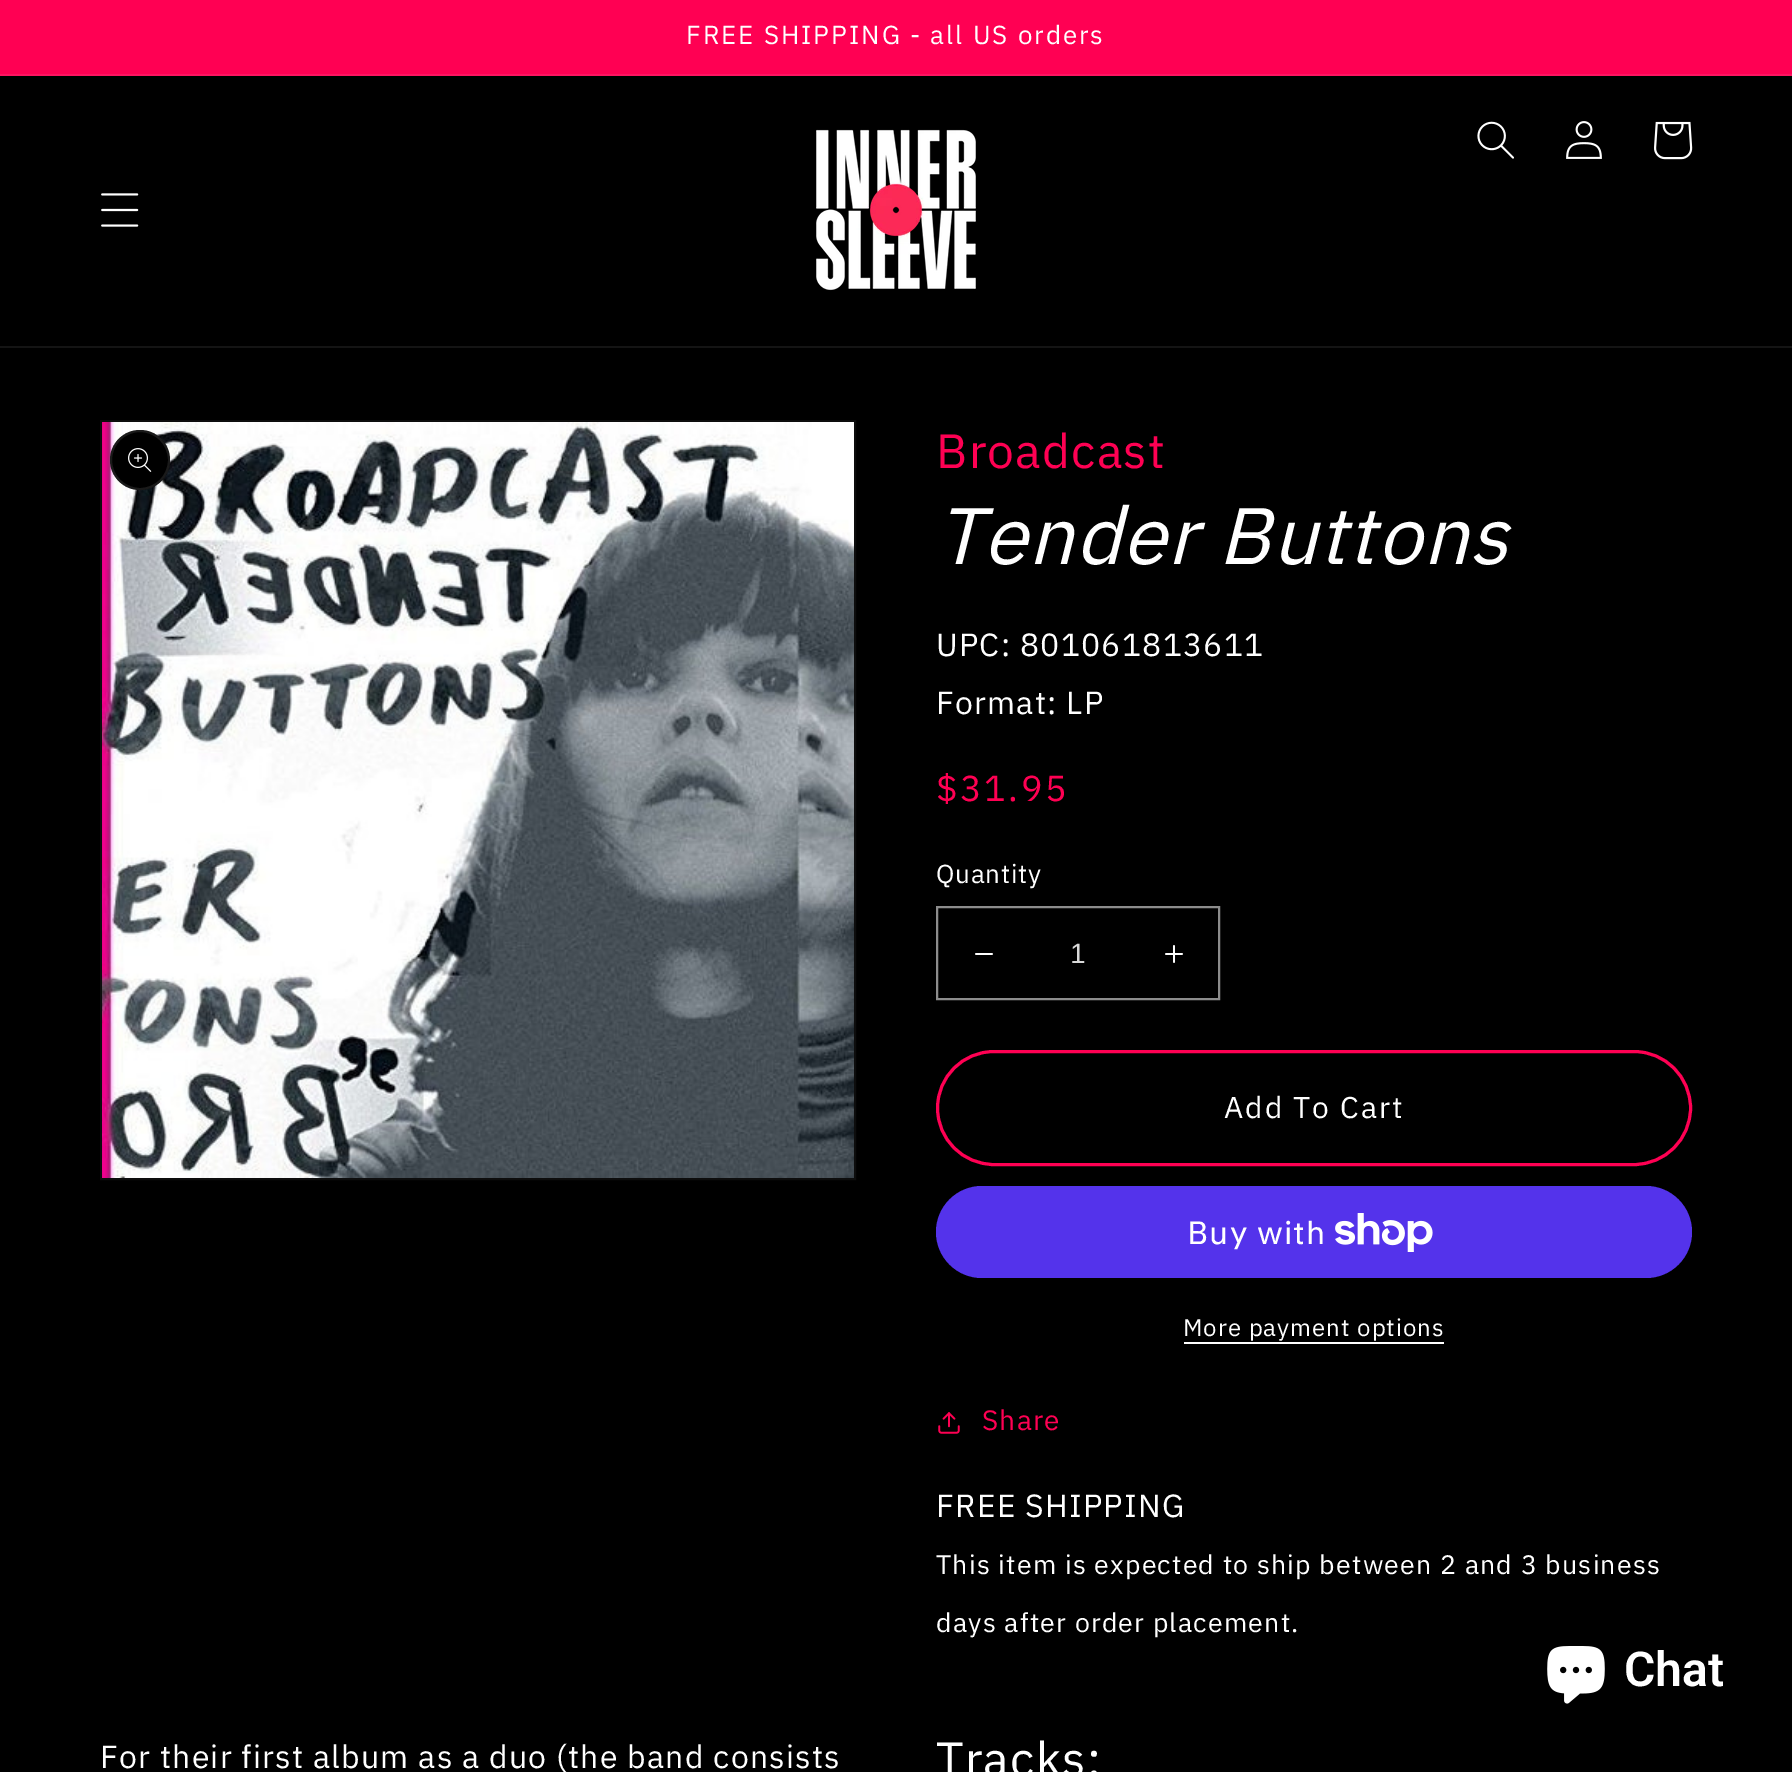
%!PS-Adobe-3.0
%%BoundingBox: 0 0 1792 1772
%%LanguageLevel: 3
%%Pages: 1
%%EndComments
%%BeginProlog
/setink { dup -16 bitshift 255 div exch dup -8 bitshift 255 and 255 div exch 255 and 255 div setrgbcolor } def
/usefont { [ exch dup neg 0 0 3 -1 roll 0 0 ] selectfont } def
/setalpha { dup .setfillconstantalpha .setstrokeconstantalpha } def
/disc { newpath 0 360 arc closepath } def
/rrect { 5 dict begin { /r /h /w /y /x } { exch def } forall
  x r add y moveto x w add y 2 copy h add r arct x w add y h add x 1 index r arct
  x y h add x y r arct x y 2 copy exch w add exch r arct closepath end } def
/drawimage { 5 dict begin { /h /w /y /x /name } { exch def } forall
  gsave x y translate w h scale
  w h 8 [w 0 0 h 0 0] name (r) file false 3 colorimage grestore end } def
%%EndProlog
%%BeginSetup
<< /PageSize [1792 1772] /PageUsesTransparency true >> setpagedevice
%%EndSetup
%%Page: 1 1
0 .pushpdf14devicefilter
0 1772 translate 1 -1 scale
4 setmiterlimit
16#000000 setink
0 0 1792 1772 rectfill
16#FF0053 setink
0 0 1792 74 rectfill
16#FF1461 setink
0 74 1792 2 rectfill
/IBMPlexSans-Regular 26 usefont
16#FFFFFF setink
686 44 moveto 2 0 (FREE SHIPPING - all US orders) ashow
16#141414 setink
0 346 1792 2 rectfill
(img1.raw) 101 193 38 34 drawimage
(img2.raw) 816 129 160 162 drawimage
(img3.raw) 1477 121 37 38 drawimage
(img4.raw) 1566 121 36 38 drawimage
(img5.raw) 1654 121 39 39 drawimage
16#0D0D0D setink
2 setlinewidth
101 421 754 758 rectstroke
(img6.raw) 102 422 752 756 drawimage
16#000000 setink
140 460 30 disc fill
0.1 setalpha
16#FFFFFF setink
140 460 29 disc stroke
1 setalpha
(img7.raw) 128 448 24 24 drawimage
/IBMPlexSans-Regular 48 usefont
16#FF0053 setink
936 468 moveto 1.2 0 (Broadcast) ashow
/IBMPlexSans-Italic 80 usefont
16#FFFFFF setink
936 564 moveto 1.2 0 (Tender Buttons) ashow
/IBMPlexSans-Regular 32 usefont
936 656 moveto 1.2 0 (UPC: 801061813611) ashow
936 714 moveto 1.2 0 (Format: LP) ashow
/IBMPlexSans-Regular 36 usefont
16#FF0053 setink
936 801 moveto 2.5 0 ($31.95) ashow
/IBMPlexSans-Regular 26 usefont
16#FFFFFF setink
936 883 moveto 0.75 0 (Quantity) ashow
(img8.raw) 975 953 18 2 drawimage
(img9.raw) 1165 945 18 18 drawimage
16#8C8C8C setink
937 907 282 92 rectstroke
/LiberationSans-Regular 28 usefont
16#D9D9D9 setink
1070 963 moveto (1) show
16#FF0053 setink
3 setlinewidth
937.5 1051.5 753 113 56.5 rrect stroke
/IBMPlexSans-Regular 30 usefont
16#FFFFFF setink
1224 1118 moveto 2 0 (Add To Cart) ashow
16#5433EB setink
936 1186 756 92 46 rrect fill
/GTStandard-Regular 32 usefont
16#FFFFFF setink
1187 1244 moveto 1.2 0 (Buy with) ashow
(img10.raw) 1335 1213 98 39 drawimage
/IBMPlexSans-Regular 24 usefont
1183 1336 moveto 1 0 (More payment options) ashow
1184 1342 260 2 rectfill
(img11.raw) 938 1412 22 22 drawimage
/IBMPlexSans-Regular 28 usefont
16#FF0053 setink
982 1430 moveto 1.2 0 (Share) ashow
/IBMPlexSans-Regular 32 usefont
16#FFFFFF setink
936 1517 moveto 1.2 0 (FREE SHIPPING) ashow
/IBMPlexSans-Regular 26.7 usefont
936 1574 moveto 1.2 0 (This item is expected to ship between 2 and 3 business) ashow
936 1632 moveto 1.2 0 (days after order placement.) ashow
/IBMPlexSans-Regular 32 usefont
100 1768 moveto 1.2 0 (For their first album as a duo \(the band consists) ashow
/IBMPlexSans-Regular 48 usefont
936 1776 moveto 1.2 0 (Tracks:) ashow
(img12.raw) 1547 1646 58 58 drawimage
/Roboto-SemiBold 48 usefont
1624 1686 moveto (Chat) show
.poppdf14devicefilter showpage
%%EOF
